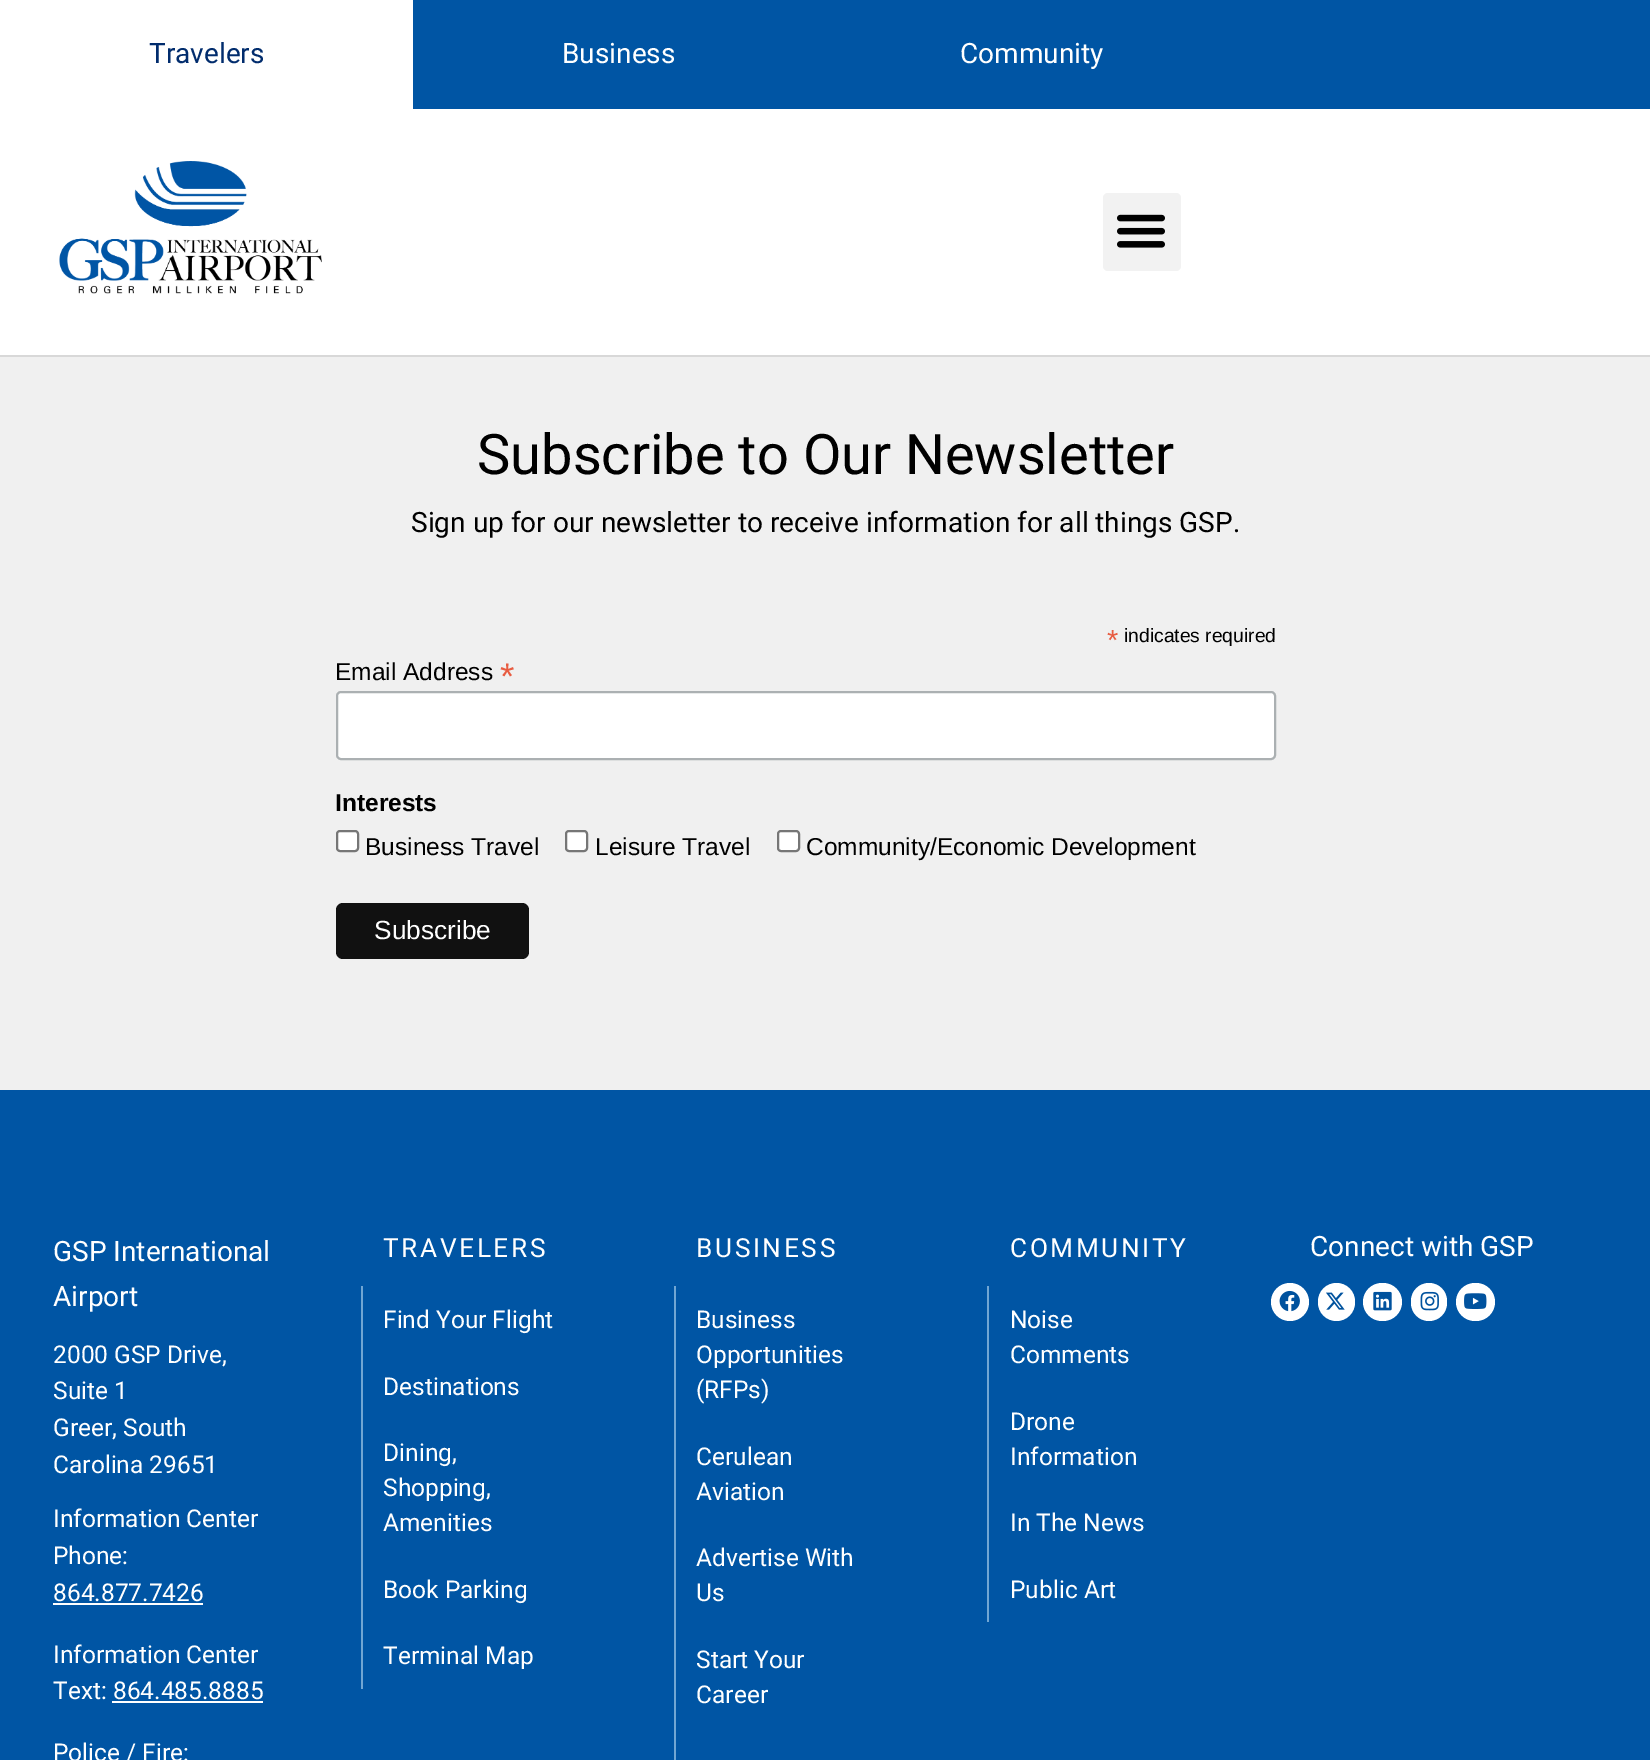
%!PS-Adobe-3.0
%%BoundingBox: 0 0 1650 1760
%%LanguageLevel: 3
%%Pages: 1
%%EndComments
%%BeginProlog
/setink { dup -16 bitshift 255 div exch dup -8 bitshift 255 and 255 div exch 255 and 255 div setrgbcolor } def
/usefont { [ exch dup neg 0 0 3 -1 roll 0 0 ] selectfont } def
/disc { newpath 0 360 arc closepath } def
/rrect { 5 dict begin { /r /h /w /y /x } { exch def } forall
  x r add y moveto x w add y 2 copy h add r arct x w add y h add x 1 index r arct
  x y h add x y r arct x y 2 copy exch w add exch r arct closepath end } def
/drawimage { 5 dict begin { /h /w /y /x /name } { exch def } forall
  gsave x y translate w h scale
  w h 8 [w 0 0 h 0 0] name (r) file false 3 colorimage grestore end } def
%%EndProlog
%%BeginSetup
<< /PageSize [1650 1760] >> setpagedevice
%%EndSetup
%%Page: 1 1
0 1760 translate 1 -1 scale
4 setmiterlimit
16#FFFFFF setink
0 0 1650 1760 rectfill
16#0055A4 setink
413 0 1237 109 rectfill
/Roboto-Regular 28 usefont
16#012C6D setink
149 63 moveto (Travelers) show
16#FFFFFF setink
562 63 moveto (Business) show
960 63 moveto (Community) show
16#D8D8D8 setink
0 355 1650 2 rectfill
(img1.raw) 59 161 263 133 drawimage
16#F2F2F2 setink
1103 193 78 78 5 rrect fill
(img2.raw) 1117 214 48 34 drawimage
16#F0F0F0 setink
0 357 1650 733 rectfill
/Roboto-Regular 56 usefont
16#000000 setink
477 474 moveto (Subscribe to Our Newsletter) show
/Roboto-Regular 28 usefont
411 532 moveto (Sign up for our newsletter to receive information for all things GSP.) show
/LiberationSans-Regular 29 usefont
16#E85C41 setink
1107 650 moveto (*) show
/LiberationSans-Regular 19.25 usefont
16#000000 setink
1124 642 moveto (indicates required) show
/LiberationSans-Regular 24.5 usefont
335 680 moveto (Email Address) show
/LiberationSans-Regular 37 usefont
16#E85C41 setink
500 689 moveto (*) show
16#FFFFFF setink
337 692 938 67 4 rrect gsave fill grestore
16#ABB0B2 setink
2 setlinewidth
stroke
/LiberationSans-Bold 24.5 usefont
16#000000 setink
335 811 moveto (Interests) show
16#FFFFFF setink
337 831 21 20 3 rrect gsave fill grestore
16#767676 setink
stroke
/LiberationSans-Regular 24.5 usefont
16#000000 setink
365 855 moveto (Business Travel) show
16#FFFFFF setink
566 831 21 20 3 rrect gsave fill grestore
16#767676 setink
stroke
16#000000 setink
595 855 moveto (Leisure Travel) show
16#FFFFFF setink
778 831 21 20 3 rrect gsave fill grestore
16#767676 setink
stroke
16#000000 setink
806 855 moveto (Community/Economic Development) show
16#111111 setink
336 903 193 56 7 rrect fill
/LiberationSans-Regular 26.25 usefont
16#FFFFFF setink
374 939 moveto (Subscribe) show
16#0055A4 setink
0 1090 1650 670 rectfill
/Roboto-Regular 28 usefont
16#FFFFFF setink
53 1261 moveto (GSP International) show
53 1306 moveto (Airport) show
/Roboto-Regular 24.5 usefont
[
    [(2000 GSP Drive,) 53 1363]
    [(Suite 1) 53 1399]
    [(Greer, South) 53 1436]
    [(Carolina 29651) 53 1473]
    [(Information Center) 53 1527]
    [(Phone:) 53 1564]
    [(864.877.7426) 53 1601]
] { aload pop moveto show } forall
53 1603 150 2 rectfill
53 1663 moveto (Information Center) show
53 1699 moveto (Text: 864.485.8885) show
112 1701 151 2 rectfill
53 1761 moveto (Police / Fire:) show
/Roboto-Regular 26.25 usefont
383 1257 moveto 2.6 0 (TRAVELERS) ashow
16#71A6D3 setink
361 1286 2 403 rectfill
/Roboto-Regular 24.5 usefont
16#FFFFFF setink
[
    [(Find Your Flight) 383 1328]
    [(Destinations) 383 1395]
    [(Dining,) 383 1461]
    [(Shopping,) 383 1496]
    [(Amenities) 383 1531]
    [(Book Parking) 383 1598]
    [(Terminal Map) 383 1664]
] { aload pop moveto show } forall
/Roboto-Regular 26.25 usefont
696 1257 moveto 2.6 0 (BUSINESS) ashow
16#71A6D3 setink
674 1286 2 474 rectfill
/Roboto-Regular 24.5 usefont
16#FFFFFF setink
[
    [(Business) 696 1328]
    [(Opportunities) 696 1363]
    [(\(RFPs\)) 696 1398]
    [(Cerulean) 696 1465]
    [(Aviation) 696 1500]
    [(Advertise With) 696 1566]
    [(Us) 696 1601]
    [(Start Your) 696 1668]
    [(Career) 696 1703]
] { aload pop moveto show } forall
/Roboto-Regular 26.25 usefont
1010 1257 moveto 2.6 0 (COMMUNITY) ashow
16#71A6D3 setink
987 1286 2 336 rectfill
/Roboto-Regular 24.5 usefont
16#FFFFFF setink
[
    [(Noise) 1010 1328]
    [(Comments) 1010 1363]
    [(Drone) 1010 1430]
    [(Information) 1010 1465]
    [(In The News) 1010 1531]
    [(Public Art) 1010 1598]
] { aload pop moveto show } forall
/Roboto-Regular 28 usefont
1310 1256 moveto (Connect with GSP) show
1290 1302 19 disc fill
(img3.raw) 1279 1290 21 22 drawimage
1318 1283 37 38 18.5 rrect fill
(img4.raw) 1326 1292 19 18 drawimage
1363 1283 39 38 19 rrect fill
(img5.raw) 1373 1291 19 20 drawimage
1411 1283 36 38 18 rrect fill
(img6.raw) 1420 1291 19 20 drawimage
1456 1283 39 38 19 rrect fill
(img7.raw) 1464 1293 23 16 drawimage
showpage
%%EOF
